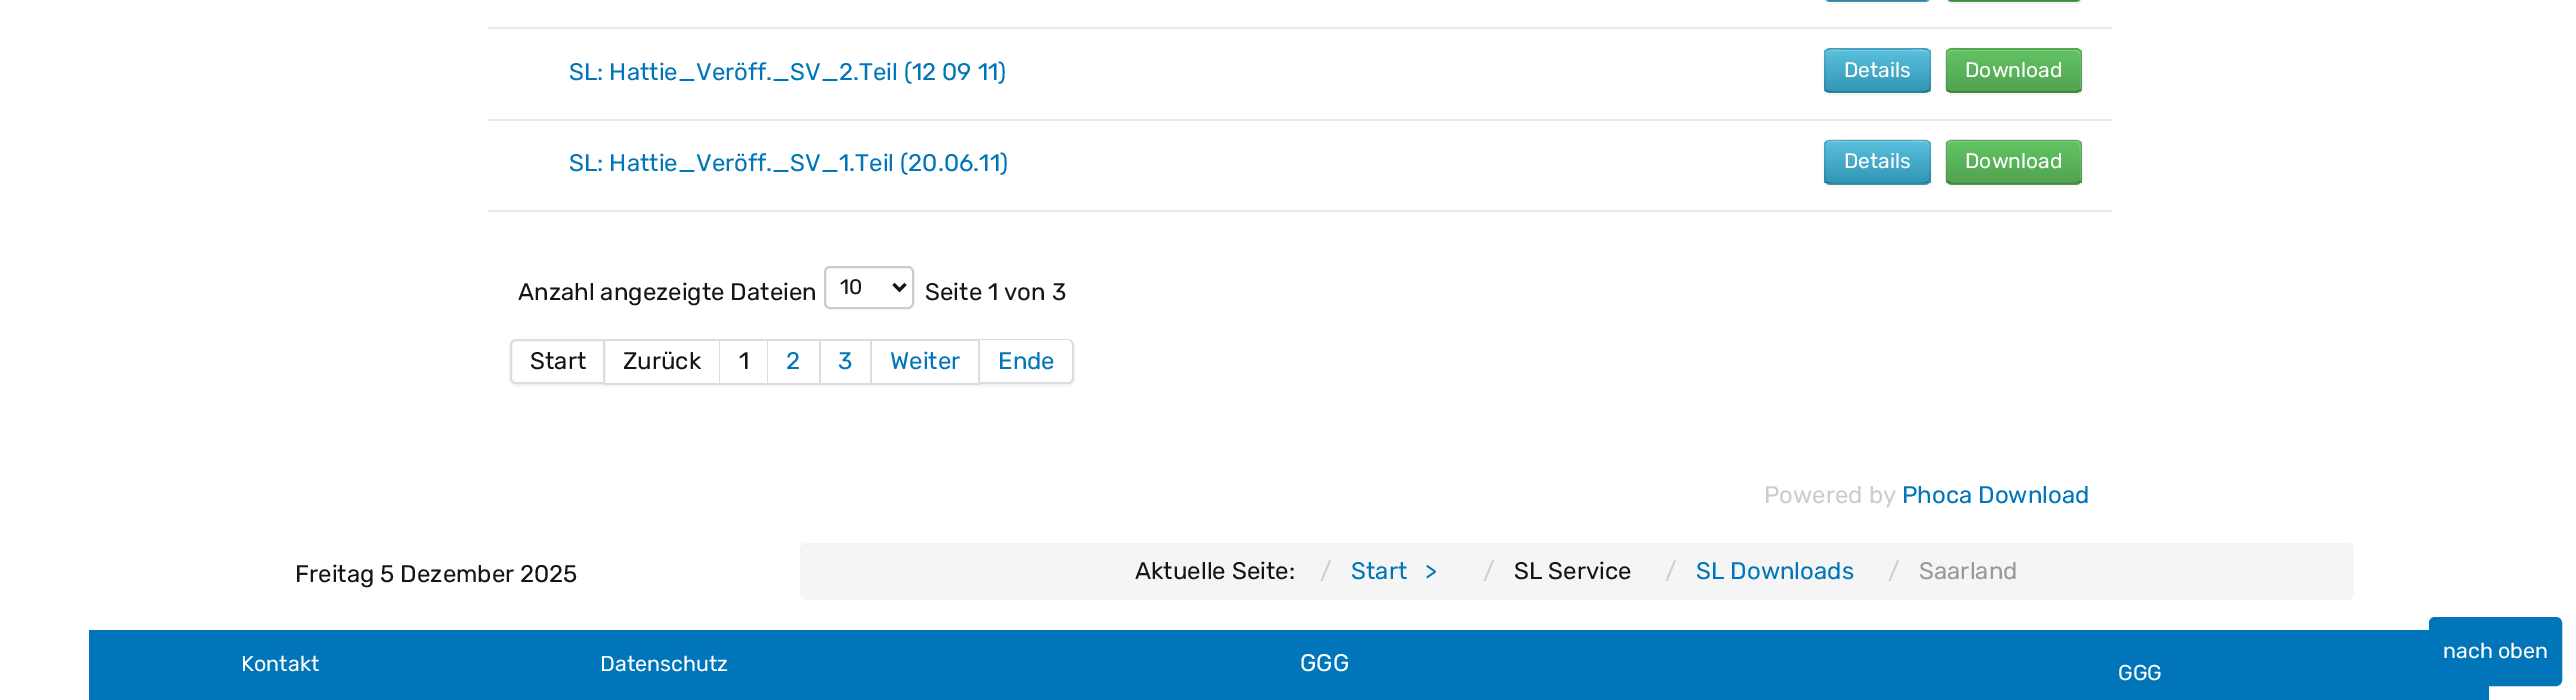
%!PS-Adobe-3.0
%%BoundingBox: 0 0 2576 700
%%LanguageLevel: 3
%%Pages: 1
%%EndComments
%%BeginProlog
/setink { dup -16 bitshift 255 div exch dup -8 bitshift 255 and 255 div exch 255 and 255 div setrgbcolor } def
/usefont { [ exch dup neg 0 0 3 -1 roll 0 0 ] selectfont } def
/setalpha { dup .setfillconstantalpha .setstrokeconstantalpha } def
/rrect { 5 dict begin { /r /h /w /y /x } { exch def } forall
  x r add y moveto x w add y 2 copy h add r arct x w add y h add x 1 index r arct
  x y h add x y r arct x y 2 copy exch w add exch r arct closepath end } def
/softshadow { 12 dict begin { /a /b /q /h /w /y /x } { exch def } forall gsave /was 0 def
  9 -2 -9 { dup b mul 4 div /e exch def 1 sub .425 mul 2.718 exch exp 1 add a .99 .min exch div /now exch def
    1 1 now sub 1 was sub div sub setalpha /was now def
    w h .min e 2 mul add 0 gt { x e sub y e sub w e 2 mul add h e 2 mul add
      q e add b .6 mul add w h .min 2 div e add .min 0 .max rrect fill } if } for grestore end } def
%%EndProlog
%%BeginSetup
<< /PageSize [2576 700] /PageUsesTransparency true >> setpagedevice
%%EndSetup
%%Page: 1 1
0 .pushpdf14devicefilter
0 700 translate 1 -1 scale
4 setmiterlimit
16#FFFFFF setink
0 0 2576 700 rectfill
16#000000 setink
1824 -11 107 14 6 1.5 0.05 softshadow
16#49AFCD setink
1824 -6 107 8 6 rrect fill
16#37839A setink
1.5 setlinewidth
1928 -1 moveto 1925 0.5 lineto 1829.5 0.5 lineto 1826.5 -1 lineto stroke
16#000000 setink
1946 -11 136 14 6 1.5 0.05 softshadow
16#5BB75B setink
1946 -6 136 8 6 rrect fill
16#448944 setink
2079.5 -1 moveto 2076.5 0.5 lineto 1951 0.5 lineto 1948 -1 lineto stroke
16#E9E9E9 setink
488 27 1624 2 rectfill
/Rubik-Regular 24 usefont
16#0175B9 setink
569 80 moveto (SL: Hattie_Veröff._SV_2.Teil \(12 09 11\)) show
16#000000 setink
1824 50 107 45 6 1.5 0.05 softshadow
16#49AFCD setink
1824 48 107 45 6 rrect fill
gsave
1824 48 107 45 6 rrect clip newpath
gsave 1824 50 moveto 1931 50 lineto 1931 92 lineto 1824 92 lineto closepath clip newpath
<< /ShadingType 2 /ColorSpace /DeviceRGB /Coords [1877 50 1877 92] /Extend [true true] /Function << /FunctionType 2 /Domain [0 1] /C0 [0.357 0.753 0.871] /C1 [0.184 0.588 0.706] /N 1 >> >> shfill grestore
grestore
0.2 setalpha
16#FFFFFF setink
1830 51 moveto 1924 51 lineto 1927 51 1929 53 1929 56 curveto 1929 46 1914 50 1908 50 curveto 1846 50 lineto 1841 50 1826 46 1826 56 curveto 1826 53 1828 51 1830 51 curveto closepath fill
0.25 setalpha
16#000000 setink
1928 90.5 moveto 1925 92 lineto 1829.5 92 lineto 1826.5 90.5 lineto stroke
0.1 setalpha
1826.5 90.5 moveto 1824 88.5 1825 84.5 1825 81.5 curveto 1825 70.5 lineto 1825 46 1821 49 1846 49 curveto 1909 49 lineto 1933.5 49 1930 46 1930 70.5 curveto 1930 81.5 lineto 1930 84.5 1930.5 88.5 1928 90.5 curveto stroke
/Rubik-Regular 21 usefont
1 setalpha
16#FFFFFF setink
1844 77 moveto (Details) show
16#000000 setink
1946 50 136 45 6 1.5 0.05 softshadow
16#5BB75B setink
1946 48 136 45 6 rrect fill
gsave
1946 48 136 45 6 rrect clip newpath
gsave 1946 50 moveto 2082 50 lineto 2082 92 lineto 1946 92 lineto closepath clip newpath
<< /ShadingType 2 /ColorSpace /DeviceRGB /Coords [2014 49 2014 92] /Extend [true true] /Function << /FunctionType 2 /Domain [0 1] /C0 [0.384 0.769 0.384] /C1 [0.318 0.639 0.318] /N 1 >> >> shfill grestore
grestore
0.2 setalpha
16#FFFFFF setink
1952 51 moveto 2076 51 lineto 2078 51 2080 53 2080 56 curveto 2080 88 lineto 2079 91 lineto 2080 90 2081 88 2081 87 curveto 2081 55 lineto 2081 52 2079 50 2076 50 curveto 1952 50 lineto 1949 50 1947 52 1947 55 curveto 1947 56 lineto 1947 53 1949 51 1952 51 curveto closepath fill
0.25 setalpha
16#000000 setink
2079.5 90.5 moveto 2076.5 92 lineto 1951 92 lineto 1948 90.5 lineto stroke
0.1 setalpha
1948 90.5 moveto 1945.5 88.5 1946 84.5 1946 81.5 curveto 1946 70.5 lineto 1946 44 1943 49 1972 49 curveto 2076 49 lineto 2082 49 2081 55.5 2081 59.5 curveto 2081 76 lineto 2081 79.5 2083 87.5 2079.5 90.5 curveto stroke
1 setalpha
16#FFFFFF setink
1965 77 moveto (Download) show
16#E9E9E9 setink
488 119 1624 2 rectfill
/Rubik-Regular 24 usefont
16#0175B9 setink
569 171 moveto (SL: Hattie_Veröff._SV_1.Teil \(20.06.11\)) show
16#000000 setink
1824 141 107 45 6 1.5 0.05 softshadow
16#49AFCD setink
1824 140 107 45 6 rrect fill
gsave
1824 140 107 45 6 rrect clip newpath
gsave 1824 141 moveto 1931 141 lineto 1931 183 lineto 1824 183 lineto closepath clip newpath
<< /ShadingType 2 /ColorSpace /DeviceRGB /Coords [1877 141 1877 183] /Extend [true true] /Function << /FunctionType 2 /Domain [0 1] /C0 [0.357 0.753 0.871] /C1 [0.184 0.588 0.706] /N 1 >> >> shfill grestore
grestore
0.2 setalpha
16#FFFFFF setink
1830 142 moveto 1924 142 lineto 1927 142 1929 145 1929 147 curveto 1929 137 1914 141 1908 141 curveto 1846 141 lineto 1841 141 1826 137 1826 147 curveto 1826 145 1828 142 1830 142 curveto closepath fill
0.25 setalpha
16#000000 setink
1928 182 moveto 1925 183.5 lineto 1829.5 183.5 lineto 1826.5 182 lineto stroke
0.1 setalpha
1826.5 182 moveto 1824 180 1825 176 1825 173 curveto 1825 162 lineto 1825 137.5 1821 140 1846 140 curveto 1909 140 lineto 1933.5 140 1930 137.5 1930 162 curveto 1930 173 lineto 1930 176 1930.5 180 1928 182 curveto stroke
/Rubik-Regular 21 usefont
1 setalpha
16#FFFFFF setink
1844 168 moveto (Details) show
16#000000 setink
1946 141 136 45 6 1.5 0.05 softshadow
16#5BB75B setink
1946 140 136 45 6 rrect fill
gsave
1946 140 136 45 6 rrect clip newpath
gsave 1946 141 moveto 2082 141 lineto 2082 183 lineto 1946 183 lineto closepath clip newpath
<< /ShadingType 2 /ColorSpace /DeviceRGB /Coords [2014 141 2014 183] /Extend [true true] /Function << /FunctionType 2 /Domain [0 1] /C0 [0.384 0.769 0.384] /C1 [0.318 0.639 0.318] /N 1 >> >> shfill grestore
grestore
0.2 setalpha
16#FFFFFF setink
1952 142 moveto 2055 142 lineto 2080 142 2080 137 2080 158 curveto 2080 181 lineto 2081 180 2081 179 2081 178 curveto 2081 146 lineto 2081 143 2079 141 2076 141 curveto 1952 141 lineto 1949 141 1947 143 1947 146 curveto 1947 147 lineto 1947 145 1949 142 1952 142 curveto closepath fill
0.25 setalpha
16#000000 setink
2079.5 182 moveto 2076.5 183.5 lineto 1951 183.5 lineto 1948 182 lineto stroke
0.1 setalpha
1948 182 moveto 1945.5 180 1946 176 1946 173 curveto 1946 162 lineto 1946 135.5 1943 140 1972 140 curveto 2076 140 lineto 2082 140.5 2081 147 2081 151 curveto 2081 167.5 lineto 2081 171 2083 179 2079.5 182 curveto stroke
1 setalpha
16#FFFFFF setink
1965 168 moveto (Download) show
16#E9E9E9 setink
488 210 1624 2 rectfill
/Rubik-Regular 24 usefont
16#151515 setink
518 300 moveto (Anzahl angezeigte Dateien) show
16#CCCCCC setink
2 setlinewidth
825 267 88 41 5 rrect stroke
16#151515 setink
3 setlinewidth
893.5 284 moveto 899.5 290 lineto 905.5 284 lineto stroke
/Rubik-Regular 21 usefont
840 294 moveto (10) show
/Rubik-Regular 24 usefont
925 300 moveto (Seite 1 von 3) show
gsave
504 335 moveto 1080 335 lineto 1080 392 lineto 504 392 lineto closepath 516 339 moveto 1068 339 lineto 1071.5 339 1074 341.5 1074 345 curveto 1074 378 lineto 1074 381.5 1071.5 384 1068 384 curveto 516 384 lineto 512.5 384 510 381.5 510 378 curveto 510 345 lineto 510 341.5 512.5 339 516 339 curveto closepath eoclip newpath
16#000000 setink
510 341 564 45 6 1.5 0.05 softshadow
grestore
16#DDDDDD setink
2 setlinewidth
516 340 moveto 604 340 lineto 604 383 lineto 516 383 lineto 513 383 511 381 511 378 curveto 511 345 lineto 511 342 513 340 516 340 curveto closepath stroke
16#151515 setink
530 369 moveto (Start) show
[
    [605 339 375 2 16#DDDDDD]
    [719 339 1 45 16#DDDDDD]
    [605 383 115 2 16#DDDDDD]
] { aload pop setink rectfill } forall
16#151515 setink
623 369 moveto (Zurück) show
16#DDDDDD setink
767 339 1 45 rectfill
720 383 48 2 rectfill
16#151515 setink
739 369 moveto (1) show
16#DDDDDD setink
819 339 2 45 rectfill
768 383 53 2 rectfill
16#0175B9 setink
786 369 moveto (2) show
16#DDDDDD setink
870 339 2 45 rectfill
821 383 51 2 rectfill
16#0175B9 setink
838 369 moveto (3) show
16#DDDDDD setink
978 339 2 45 rectfill
872 383 108 2 rectfill
16#0175B9 setink
890 369 moveto (Weiter) show
16#DDDDDD setink
980 339 moveto 1068 339 lineto 1071 339 1074 342 1074 345 curveto 1074 378 lineto 1074 381 1071 384 1068 384 curveto 980 384 lineto closepath 980 340 moveto 1068 340 lineto 1070 340 1072 343 1072 345 curveto 1072 378 lineto 1072 380 1070 382 1068 382 curveto 980 382 lineto closepath eofill
16#0175B9 setink
998 369 moveto (Ende) show
16#CCCCCC setink
1764 503 moveto (Powered by) show
16#0175B9 setink
1902 503 moveto (Phoca Download) show
16#151515 setink
295 582 moveto (Freitag 5 Dezember 2025) show
16#F5F5F5 setink
800 543 1554 57 6 rrect fill
16#151515 setink
1135 579 moveto (Aktuelle Seite:) show
16#CCCCCC setink
1320 579 moveto (/) show
16#0175B9 setink
1351 579 moveto (Start   >) show
16#CCCCCC setink
1483 579 moveto (/) show
16#151515 setink
1514 579 moveto (SL Service) show
16#CCCCCC setink
1665 579 moveto (/) show
16#0175B9 setink
1696 579 moveto (SL Downloads) show
16#CCCCCC setink
1888 579 moveto (/) show
16#999999 setink
1919 579 moveto (Saarland) show
16#0175B9 setink
89 630 2400 70 rectfill
2430 618 131 67 5 rrect gsave fill grestore
stroke
/Rubik-Regular 21.5 usefont
16#FFFFFF setink
[
    [(nach oben) 2443 658]
    [(Kontakt) 241 671]
    [(Datenschutz) 600 671]
] { aload pop moveto show } forall
/Rubik-Regular 24 usefont
1300 671 moveto (GGG) show
/Rubik-Regular 21.5 usefont
2118 680 moveto (GGG) show
.poppdf14devicefilter showpage
%%EOF
